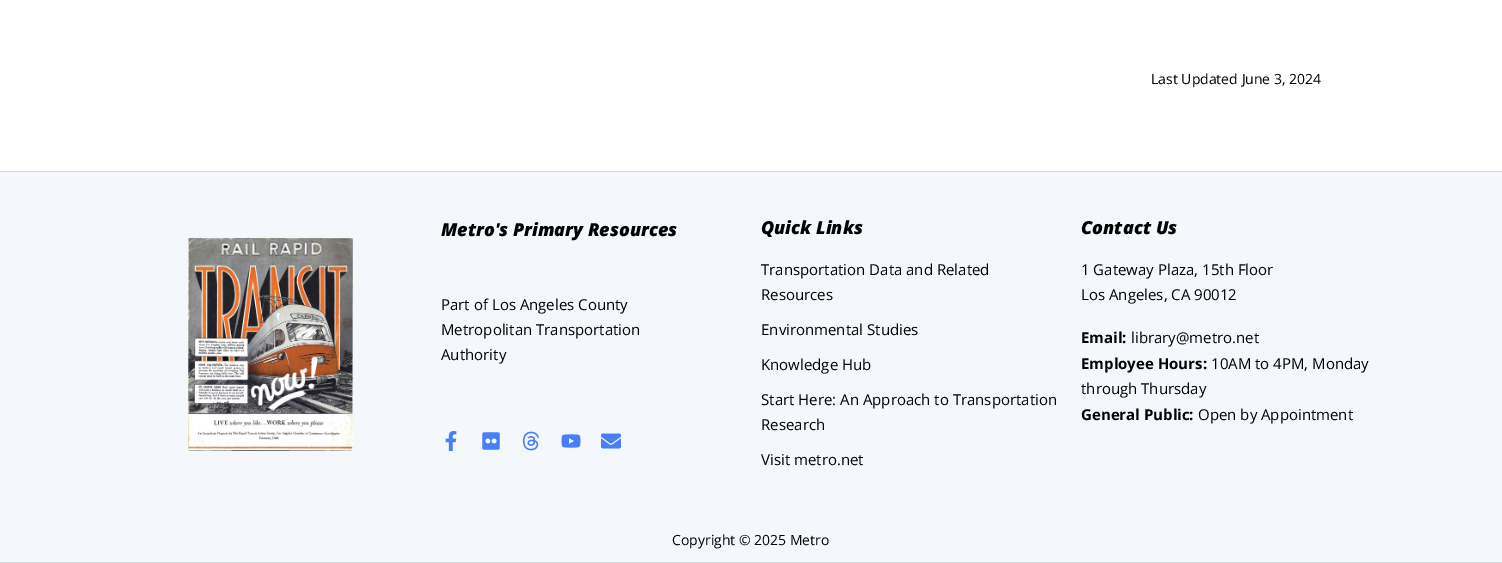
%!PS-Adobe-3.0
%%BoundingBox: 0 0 1502 563
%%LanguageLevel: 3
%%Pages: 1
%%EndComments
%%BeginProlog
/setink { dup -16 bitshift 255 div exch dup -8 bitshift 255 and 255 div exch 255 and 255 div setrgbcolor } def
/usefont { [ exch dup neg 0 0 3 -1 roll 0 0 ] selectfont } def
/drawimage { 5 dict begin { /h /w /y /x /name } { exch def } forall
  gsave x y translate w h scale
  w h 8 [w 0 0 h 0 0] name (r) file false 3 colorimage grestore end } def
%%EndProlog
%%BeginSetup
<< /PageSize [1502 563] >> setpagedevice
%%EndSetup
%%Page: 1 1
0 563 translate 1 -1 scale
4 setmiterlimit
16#FFFFFF setink
0 0 1502 563 rectfill
/OpenSans-Regular 14 usefont
16#000000 setink
1151 84 moveto (Last Updated June 3, 2024) show
16#F4F7FB setink
0 172 1502 390 rectfill
16#D3D9DF setink
0 171 1502 1 rectfill
(img1.raw) 188 238 165 213 drawimage
/OpenSans-ExtraBoldItalic 18 usefont
16#000000 setink
441 236 moveto (Metro's Primary Resources) show
/OpenSans-Regular 15 usefont
[
    [(Part of Los Angeles County) 441 310]
    [(Metropolitan Transportation) 441 335]
    [(Authority) 441 360]
] { aload pop moveto show } forall
(img2.raw) 445 431 12 20 drawimage
(img3.raw) 482 432 18 18 drawimage
(img4.raw) 522 431 17 20 drawimage
(img5.raw) 561 434 20 14 drawimage
(img6.raw) 601 433 20 16 drawimage
/OpenSans-ExtraBoldItalic 18 usefont
761 234 moveto (Quick Links) show
/OpenSans-Regular 15 usefont
[
    [(Transportation Data and Related) 761 275]
    [(Resources) 761 300]
    [(Environmental Studies) 761 335]
    [(Knowledge Hub) 761 370]
    [(Start Here: An Approach to Transportation) 761 405]
    [(Research) 761 430]
    [(Visit metro.net) 761 465]
] { aload pop moveto show } forall
/OpenSans-ExtraBoldItalic 18 usefont
1081 234 moveto (Contact Us) show
/OpenSans-Regular 15 usefont
1081 275 moveto (1 Gateway Plaza, 15th Floor) show
1081 300 moveto (Los Angeles, CA 90012) show
/OpenSans-Bold 15 usefont
1081 343 moveto (Email:) show
/OpenSans-Regular 15 usefont
1131 343 moveto (library@metro.net) show
/OpenSans-Bold 15 usefont
1081 369 moveto (Employee Hours:) show
/OpenSans-Regular 15 usefont
1211 369 moveto (10AM to 4PM, Monday) show
1081 394 moveto (through Thursday) show
/OpenSans-Bold 15 usefont
1081 420 moveto (General Public:) show
/OpenSans-Regular 15 usefont
1198 420 moveto (Open by Appointment) show
16#D3D9DF setink
0 562 1502 1 rectfill
/OpenSans-Regular 14 usefont
16#000000 setink
672 545 moveto (Copyright © 2025 Metro) show
showpage
%%EOF
